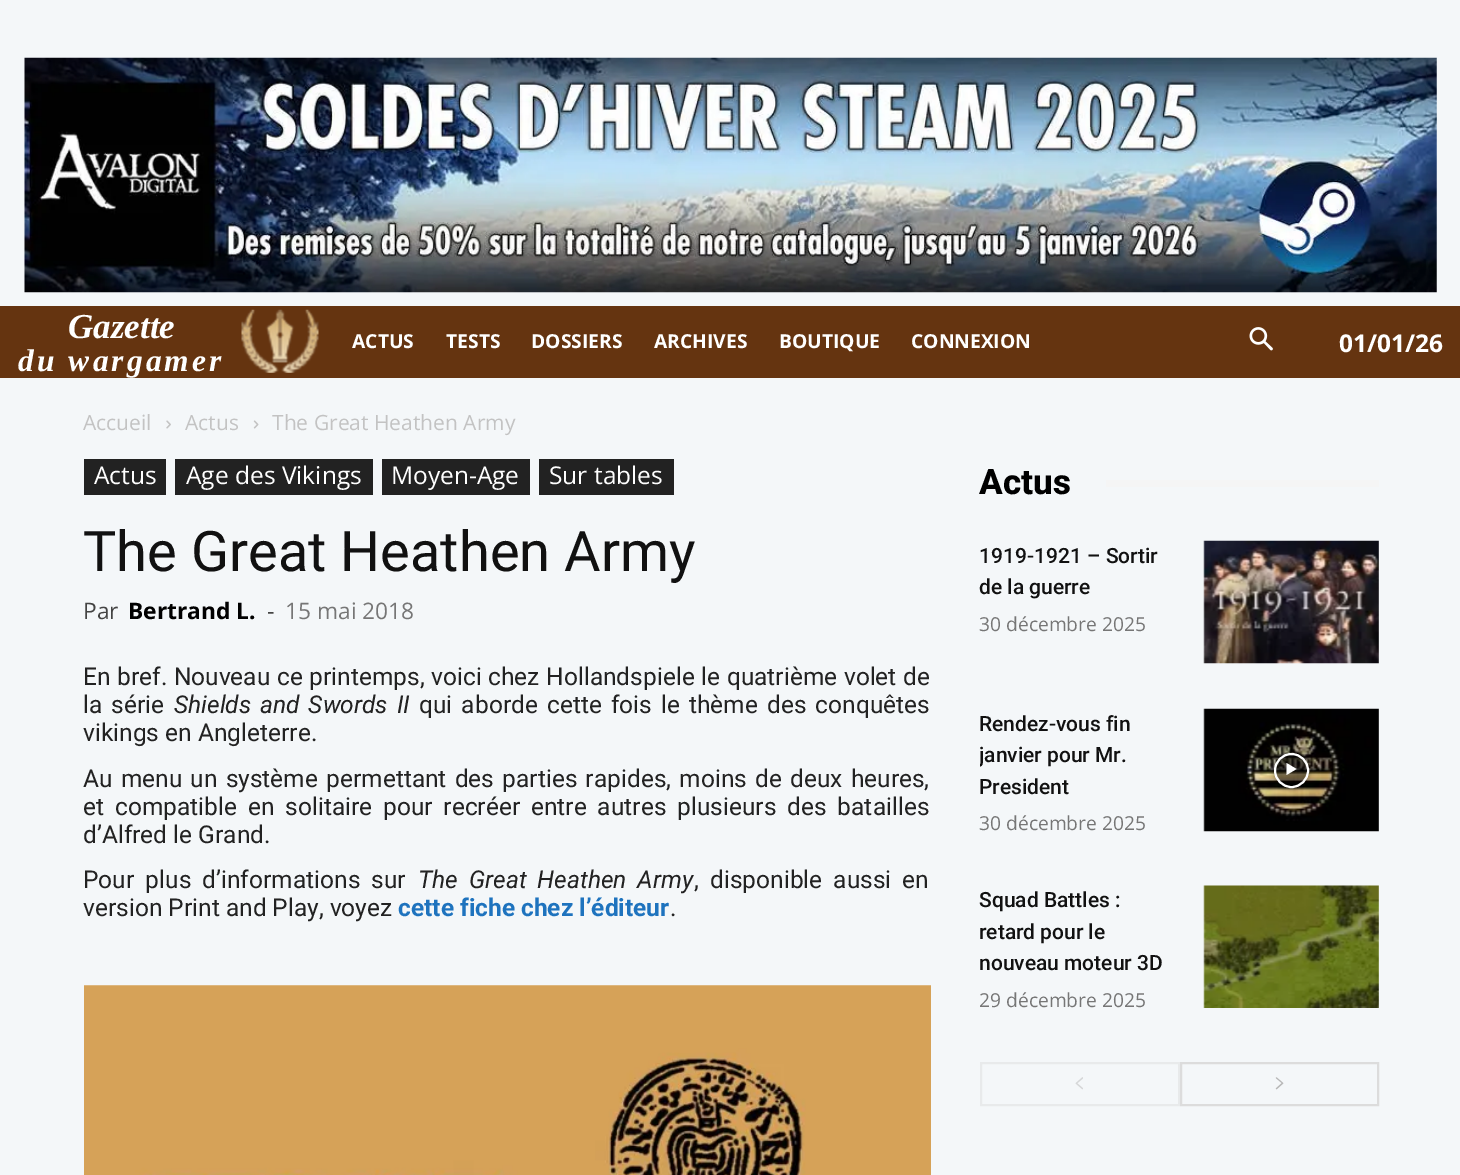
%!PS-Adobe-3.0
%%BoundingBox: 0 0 1460 1175
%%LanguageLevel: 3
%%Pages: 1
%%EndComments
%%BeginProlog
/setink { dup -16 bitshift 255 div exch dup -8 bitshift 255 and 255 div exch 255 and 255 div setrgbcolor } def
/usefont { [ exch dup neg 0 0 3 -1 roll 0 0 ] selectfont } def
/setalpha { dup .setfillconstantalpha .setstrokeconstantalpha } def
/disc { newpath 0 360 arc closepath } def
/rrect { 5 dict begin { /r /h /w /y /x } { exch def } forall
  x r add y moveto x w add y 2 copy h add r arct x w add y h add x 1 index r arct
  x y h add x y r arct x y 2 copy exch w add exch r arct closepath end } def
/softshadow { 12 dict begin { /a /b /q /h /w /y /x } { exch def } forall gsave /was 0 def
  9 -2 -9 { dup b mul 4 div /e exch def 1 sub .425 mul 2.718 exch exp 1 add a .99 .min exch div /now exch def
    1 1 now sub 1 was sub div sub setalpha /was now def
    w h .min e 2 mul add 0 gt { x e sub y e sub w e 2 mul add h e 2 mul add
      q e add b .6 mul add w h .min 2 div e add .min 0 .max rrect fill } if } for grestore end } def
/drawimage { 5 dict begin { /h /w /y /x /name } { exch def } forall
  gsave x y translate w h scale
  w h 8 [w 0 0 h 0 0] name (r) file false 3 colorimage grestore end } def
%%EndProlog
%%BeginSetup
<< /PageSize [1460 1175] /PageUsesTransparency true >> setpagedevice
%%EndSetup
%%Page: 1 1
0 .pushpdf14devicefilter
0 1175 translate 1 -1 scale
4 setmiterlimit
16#F4F7F9 setink
0 0 1460 1175 rectfill
(img1.raw) 24 57 1413 236 drawimage
16#653410 setink
0 306 1460 72 rectfill
/LiberationSerif-BoldItalic 35 usefont
16#FFFFFF setink
68 338 moveto (Gazette) show
/LiberationSerif-BoldItalic 31.5 usefont
18 371 moveto 3.1 0 (du wargamer) ashow
(img2.raw) 241 309 78 64 drawimage
/OpenSans-Bold 19.25 usefont
[
    [(ACTUS) 352 348]
    [(TESTS) 446 348]
    [(DOSSIERS) 531 348]
    [(ARCHIVES) 654 348]
    [(BOUTIQUE) 779 348]
    [(CONNEXION) 911 348]
] { aload pop moveto show } forall
(img3.raw) 1249 327 24 24 drawimage
/OpenSans-Bold 24.5 usefont
1339 352 moveto (01/01/26) show
/OpenSans-Regular 21 usefont
16#C3C3C3 setink
83 430 moveto (Accueil) show
(img4.raw) 166 420 5 9 drawimage
185 430 moveto (Actus) show
(img5.raw) 253 420 6 9 drawimage
272 430 moveto (The Great Heathen Army) show
16#222222 setink
84 459 82 36 rectfill
/OpenSans-Regular 24.5 usefont
16#FFFFFF setink
94 484 moveto (Actus) show
16#222222 setink
175 459 198 36 rectfill
16#FFFFFF setink
186 484 moveto (Age des Vikings) show
16#222222 setink
382 459 148 36 rectfill
16#FFFFFF setink
391 484 moveto (Moyen-Age) show
16#222222 setink
539 459 135 36 rectfill
16#FFFFFF setink
549 484 moveto (Sur tables) show
/Roboto-Regular 56 usefont
16#111111 setink
83 571 moveto (The Great Heathen Army) show
/OpenSans-Regular 22.75 usefont
16#444444 setink
83 619 moveto (Par) show
/OpenSans-Bold 22.75 usefont
16#000000 setink
128 619 moveto (Bertrand L.) show
/OpenSans-Regular 22.75 usefont
16#444444 setink
267 619 moveto (-) show
16#767676 setink
285 619 moveto (15 mai 2018) show
/Roboto-Regular 24.5 usefont
16#222222 setink
83 685 moveto 0.5 0 32 (En bref. Nouveau ce printemps, voici chez Hollandspiele le quatrième volet de) widthshow
83 713 moveto 3 0 32 (la série) widthshow
/Roboto-Italic 24.5 usefont
174 713 moveto 3 0 32 (Shields and Swords II) widthshow
/Roboto-Regular 24.5 usefont
419 713 moveto 3 0 32 (qui aborde cette fois le thème des conquêtes) widthshow
83 741 moveto (vikings en Angleterre.) show
83 787 moveto 2.1 0 32 (Au menu un système permettant des parties rapides, moins de deux heures,) widthshow
83 815 moveto 4.75 0 32 (et compatible en solitaire pour recréer entre autres plusieurs des batailles) widthshow
83 843 moveto (d’Alfred le Grand.) show
83 888 moveto 5 0 32 (Pour plus d’informations sur) widthshow
/Roboto-Italic 24.5 usefont
418 888 moveto 5 0 32 (The Great Heathen Army) widthshow
/Roboto-Regular 24.5 usefont
694 888 moveto 5 0 32 (, disponible aussi en) widthshow
83 916 moveto (version Print and Play, voyez) show
/Roboto-Bold 24.5 usefont
16#1E73BE setink
398 916 moveto (cette fiche chez l’éditeur) show
/Roboto-Regular 24.5 usefont
16#222222 setink
670 916 moveto (.) show
(img6.raw) 84 985 847 190 drawimage
/Roboto-ExtraBold 35 usefont
16#000000 setink
979 494 moveto (Actus) show
16#F5F5F5 setink
1106 480 273 7 rectfill
/Roboto-Medium 21 usefont
16#111111 setink
979 563 moveto (1919-1921 – Sortir) show
979 594 moveto (de la guerre) show
/OpenSans-Regular 19.25 usefont
16#767676 setink
979 631 moveto (30 décembre 2025) show
(img7.raw) 1203 540 176 124 drawimage
/Roboto-Medium 21 usefont
16#111111 setink
979 731 moveto (Rendez-vous fin) show
gsave
980 459 399 647 rectclip
979 762 moveto (janvier pour Mr.) show
grestore
979 794 moveto (President) show
/OpenSans-Regular 19.25 usefont
16#767676 setink
979 830 moveto (30 décembre 2025) show
(img8.raw) 1203 708 176 124 drawimage
gsave
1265 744 moveto 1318 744 lineto 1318 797 lineto 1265 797 lineto closepath 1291.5 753 moveto 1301 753 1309 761 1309 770.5 curveto 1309 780 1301 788 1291.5 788 curveto 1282 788 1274 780 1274 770.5 curveto 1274 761 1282 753 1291.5 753 curveto closepath eoclip newpath
16#000000 setink
1274 753 35 35 17.5 2.5 0.4 softshadow
grestore
0.48 setalpha
16#000000 setink
1291.5 770.5 16.5 disc fill
1 setalpha
16#FFFFFF setink
2 setlinewidth
1291.5 770.5 16.5 disc stroke
1286.5 763 moveto 1286.5 775 lineto 1296.5 769 lineto closepath fill
/Roboto-Medium 21 usefont
16#111111 setink
[
    [(Squad Battles :) 979 907]
    [(retard pour le) 979 939]
    [(nouveau moteur 3D) 979 970]
] { aload pop moveto show } forall
/OpenSans-Regular 19.25 usefont
16#767676 setink
979 1007 moveto (29 décembre 2025) show
(img9.raw) 1203 885 176 123 drawimage
16#E8EAEB setink
981 1063 198 42 rectstroke
(img10.raw) 1075 1077 8 13 drawimage
16#DCDCDC setink
1181 1063 197 42 rectstroke
(img11.raw) 1275 1077 9 13 drawimage
.poppdf14devicefilter showpage
%%EOF
